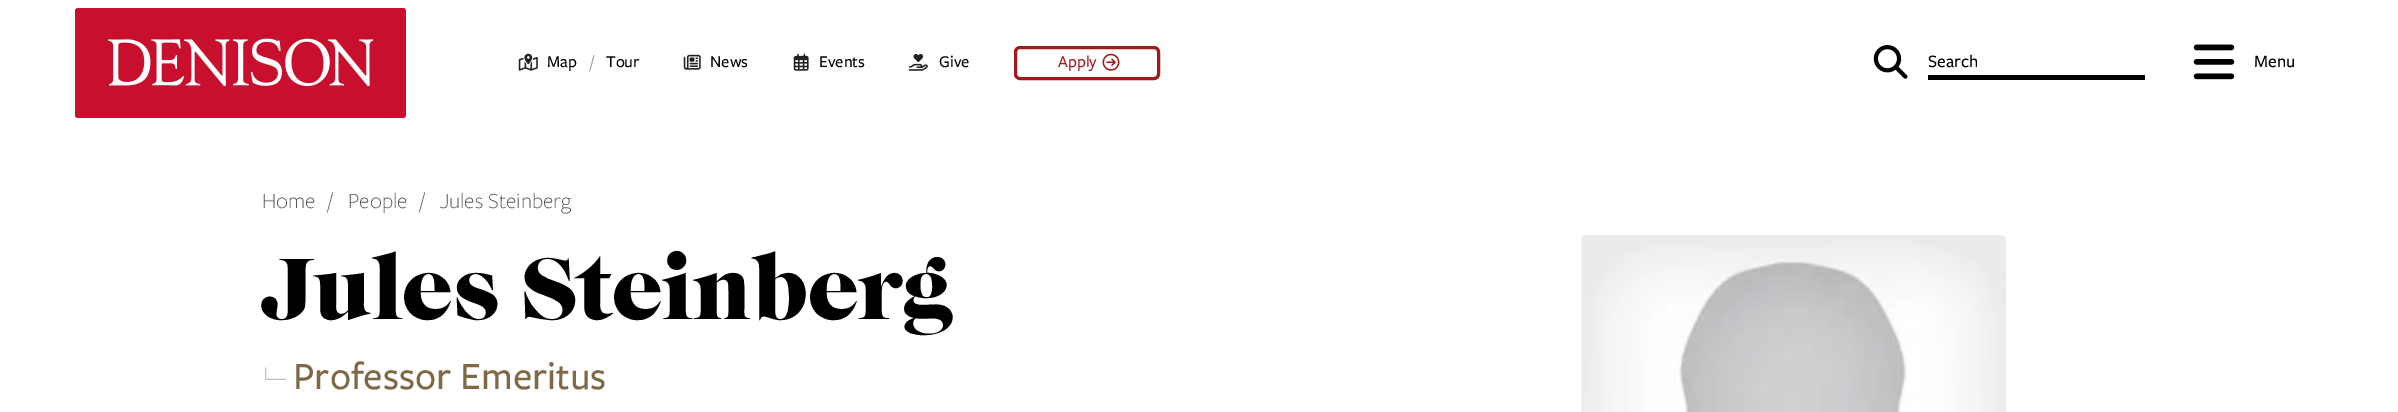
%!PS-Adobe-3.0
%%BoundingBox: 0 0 2398 412
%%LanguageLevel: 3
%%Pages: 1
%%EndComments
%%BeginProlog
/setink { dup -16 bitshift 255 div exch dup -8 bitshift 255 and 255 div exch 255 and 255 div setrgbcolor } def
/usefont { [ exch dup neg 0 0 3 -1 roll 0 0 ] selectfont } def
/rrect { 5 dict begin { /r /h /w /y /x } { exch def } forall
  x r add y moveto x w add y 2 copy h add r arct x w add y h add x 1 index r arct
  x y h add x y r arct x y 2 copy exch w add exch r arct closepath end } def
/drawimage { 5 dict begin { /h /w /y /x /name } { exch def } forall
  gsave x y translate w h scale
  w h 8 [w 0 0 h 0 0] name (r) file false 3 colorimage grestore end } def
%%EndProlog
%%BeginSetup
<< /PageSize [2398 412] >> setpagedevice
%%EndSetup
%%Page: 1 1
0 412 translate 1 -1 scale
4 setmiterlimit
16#FFFFFF setink
0 0 2398 412 rectfill
16#C8102E setink
75 8 331 110 3 rrect fill
(img1.raw) 75 8 330 110 drawimage
(img2.raw) 518 53 20 18 drawimage
/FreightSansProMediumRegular-Medium 17 usefont
16#000000 setink
547 67 moveto (Map) show
/FreightSansProMediumRegular-Medium 18 usefont
16#999999 setink
590 68 moveto (/) show
/FreightSansProMediumRegular-Medium 17 usefont
16#000000 setink
606 67 moveto (Tour) show
(img3.raw) 683 54 18 16 drawimage
710 67 moveto (News) show
(img4.raw) 793 53 16 18 drawimage
819 67 moveto (Events) show
(img5.raw) 908 54 20 17 drawimage
939 67 moveto (Give) show
16#9E1A1D setink
3 setlinewidth
1015.5 47.5 143 31 4.5 rrect stroke
1058 67 moveto (Apply) show
(img6.raw) 1102 53 18 18 drawimage
(img7.raw) 1873 45 35 34 drawimage
16#000000 setink
1928 75 217 5 rectfill
/FreightSansProMediumRegular-Medium 18 usefont
1928 67 moveto (Search) show
(img8.raw) 2193 44 42 36 drawimage
2254 67 moveto (Menu) show
/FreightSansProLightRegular-Light 22.5 usefont
16#555555 setink
[
    [(Home) 262 208]
    [(/) 328 208]
    [(People) 348 208]
    [(/) 420 208]
    [(Jules Steinberg) 440 208]
] { aload pop moveto show } forall
/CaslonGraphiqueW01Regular-Regular 90 usefont
16#000000 setink
262 319 moveto (Jules Steinberg) show
16#F9F9F9 setink
1581 235 425 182 5 rrect fill
(img9.raw) 1581 235 425 177 drawimage
(img10.raw) 265 367 22 13 drawimage
/FreightSansProMediumRegular-Medium 40 usefont
16#7E6944 setink
293 389 moveto (Professor Emeritus) show
showpage
%%EOF
